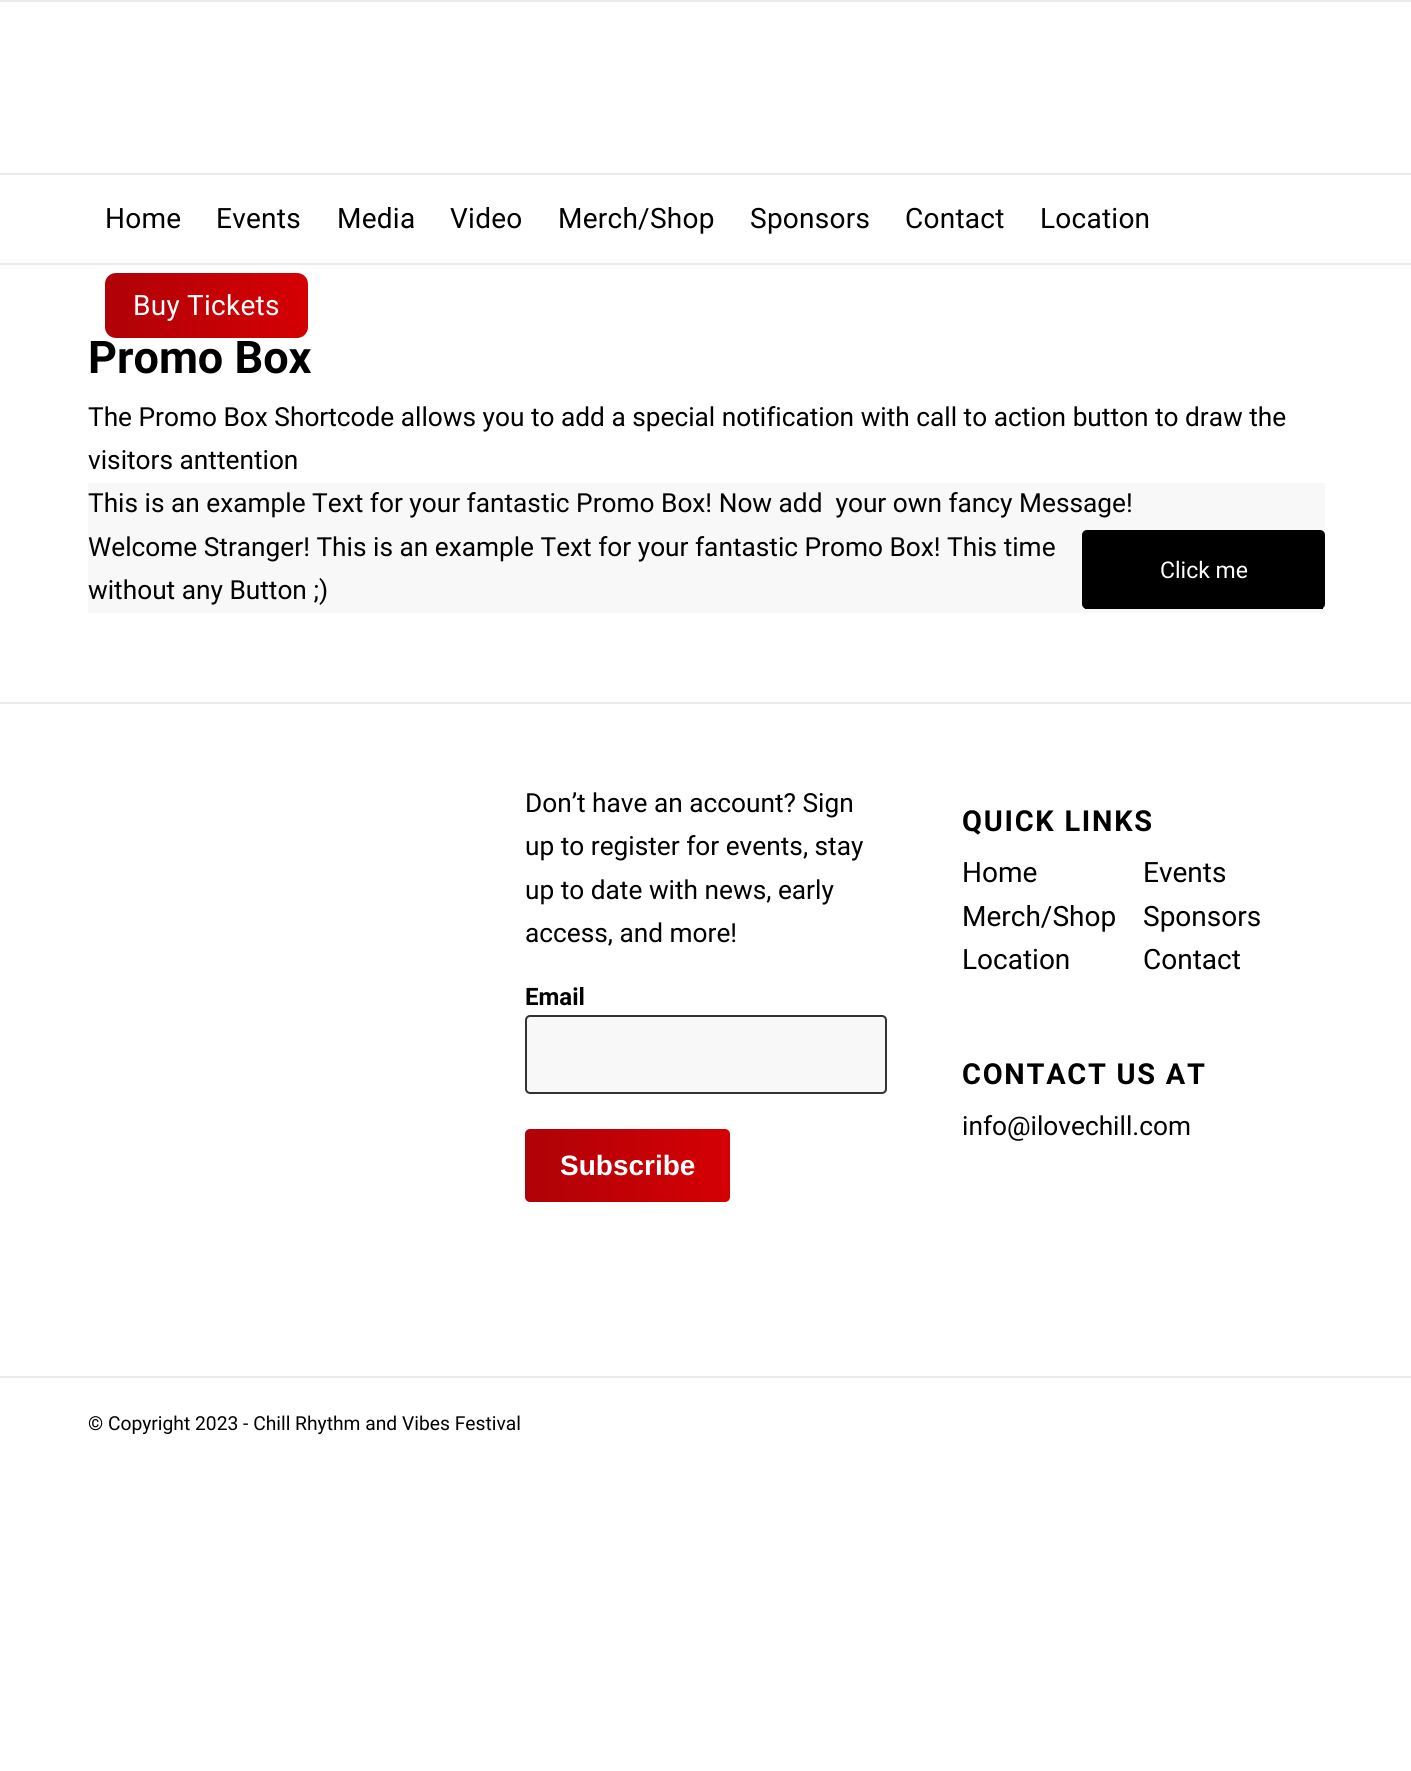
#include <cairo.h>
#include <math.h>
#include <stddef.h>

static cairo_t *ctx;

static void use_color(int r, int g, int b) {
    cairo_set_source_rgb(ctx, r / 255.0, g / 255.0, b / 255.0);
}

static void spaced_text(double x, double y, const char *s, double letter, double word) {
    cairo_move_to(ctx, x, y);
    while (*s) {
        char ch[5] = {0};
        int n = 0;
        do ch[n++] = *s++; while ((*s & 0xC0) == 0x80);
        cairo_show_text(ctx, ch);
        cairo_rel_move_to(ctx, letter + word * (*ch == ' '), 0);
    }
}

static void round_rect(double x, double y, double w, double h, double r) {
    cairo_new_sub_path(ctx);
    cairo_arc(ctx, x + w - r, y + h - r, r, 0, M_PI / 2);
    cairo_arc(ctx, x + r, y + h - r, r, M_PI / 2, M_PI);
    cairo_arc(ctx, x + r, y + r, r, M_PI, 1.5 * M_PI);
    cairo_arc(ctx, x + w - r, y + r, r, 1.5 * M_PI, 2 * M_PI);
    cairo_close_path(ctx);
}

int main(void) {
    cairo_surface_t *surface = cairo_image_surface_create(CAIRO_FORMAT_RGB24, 1411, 1771);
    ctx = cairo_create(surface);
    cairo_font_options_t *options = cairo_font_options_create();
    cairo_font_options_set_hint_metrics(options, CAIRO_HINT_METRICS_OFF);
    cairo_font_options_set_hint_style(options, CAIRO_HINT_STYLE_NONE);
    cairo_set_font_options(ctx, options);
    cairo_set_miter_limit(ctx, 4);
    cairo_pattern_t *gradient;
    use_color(255, 255, 255);
    cairo_paint(ctx);
    use_color(235, 235, 235);
    cairo_rectangle(ctx, 0, 0, 1411, 2);
    cairo_fill(ctx);
    cairo_rectangle(ctx, 0, 263, 1411, 2);
    cairo_fill(ctx);
    cairo_rectangle(ctx, 0, 173, 1411, 2);
    cairo_fill(ctx);
    cairo_select_font_face(ctx, "Roboto", CAIRO_FONT_SLANT_NORMAL, CAIRO_FONT_WEIGHT_NORMAL);
    cairo_set_font_size(ctx, 28);
    use_color(0, 0, 0);
    spaced_text(105, 228, "Home", 0.25, 0);
    spaced_text(216, 228, "Events", 0.25, 0);
    spaced_text(337, 228, "Media", 0.25, 0);
    spaced_text(450, 228, "Video", 0.25, 0);
    spaced_text(558, 228, "Merch/Shop", 0.25, 0);
    spaced_text(750, 228, "Sponsors", 0.25, 0);
    spaced_text(905, 228, "Contact", 0.25, 0);
    spaced_text(1040, 228, "Location", 0.25, 0);
    gradient = cairo_pattern_create_linear(105, 305, 308, 305);
    cairo_pattern_add_color_stop_rgba(gradient, 0, 0.686, 0.008, 0.031, 1);
    cairo_pattern_add_color_stop_rgba(gradient, 1, 0.835, 0, 0.012, 1);
    cairo_set_source(ctx, gradient);
    cairo_pattern_destroy(gradient);
    round_rect(105, 273, 203, 65, 11);
    cairo_fill(ctx);
    use_color(255, 255, 255);
    spaced_text(133, 315, "Buy Tickets", 0.25, 0);
    cairo_select_font_face(ctx, "Roboto", CAIRO_FONT_SLANT_NORMAL, CAIRO_FONT_WEIGHT_BOLD);
    cairo_set_font_size(ctx, 45);
    use_color(0, 0, 0);
    cairo_move_to(ctx, 88, 373);
    cairo_show_text(ctx, "Promo Box");
    cairo_select_font_face(ctx, "Roboto", CAIRO_FONT_SLANT_NORMAL, CAIRO_FONT_WEIGHT_NORMAL);
    cairo_set_font_size(ctx, 26.25);
    cairo_move_to(ctx, 88, 426);
    cairo_show_text(ctx, "The Promo Box Shortcode allows you to add a special notification with call to action button to draw the");
    cairo_move_to(ctx, 88, 469);
    cairo_show_text(ctx, "visitors anttention");
    use_color(248, 248, 248);
    cairo_rectangle(ctx, 88, 483, 1237, 130);
    cairo_fill(ctx);
    use_color(0, 0, 0);
    cairo_move_to(ctx, 88, 512);
    cairo_show_text(ctx, "This is an example Text for your fantastic Promo Box! Now add  your own fancy Message!");
    round_rect(1082, 530, 243, 79, 5);
    cairo_fill(ctx);
    cairo_rectangle(ctx, 1085, 608, 238, 1);
    cairo_fill(ctx);
    cairo_set_font_size(ctx, 23);
    use_color(255, 255, 255);
    cairo_move_to(ctx, 1160, 578);
    cairo_show_text(ctx, "Click me");
    cairo_set_font_size(ctx, 26.25);
    use_color(0, 0, 0);
    cairo_move_to(ctx, 88, 556);
    cairo_show_text(ctx, "Welcome Stranger! This is an example Text for your fantastic Promo Box! This time");
    cairo_move_to(ctx, 88, 599);
    cairo_show_text(ctx, "without any Button ;)");
    use_color(235, 235, 235);
    cairo_rectangle(ctx, 0, 702, 1411, 2);
    cairo_fill(ctx);
    use_color(0, 0, 0);
    cairo_move_to(ctx, 525, 812);
    cairo_show_text(ctx, "Don’t have an account? Sign");
    cairo_move_to(ctx, 525, 855);
    cairo_show_text(ctx, "up to register for events, stay");
    cairo_move_to(ctx, 525, 899);
    cairo_show_text(ctx, "up to date with news, early");
    cairo_move_to(ctx, 525, 942);
    cairo_show_text(ctx, "access, and more!");
    cairo_select_font_face(ctx, "Roboto", CAIRO_FONT_SLANT_NORMAL, CAIRO_FONT_WEIGHT_BOLD);
    cairo_set_font_size(ctx, 24);
    cairo_move_to(ctx, 525, 1005);
    cairo_show_text(ctx, "Email");
    use_color(248, 248, 248);
    round_rect(526, 1016, 360, 77, 4);
    cairo_fill_preserve(ctx);
    use_color(51, 51, 51);
    cairo_stroke(ctx);
    gradient = cairo_pattern_create_linear(525, 1166, 730, 1166);
    cairo_pattern_add_color_stop_rgba(gradient, 0, 0.686, 0.008, 0.031, 1);
    cairo_pattern_add_color_stop_rgba(gradient, 1, 0.835, 0, 0.012, 1);
    cairo_set_source(ctx, gradient);
    cairo_pattern_destroy(gradient);
    round_rect(525, 1129, 205, 73, 5);
    cairo_fill(ctx);
    cairo_select_font_face(ctx, "Liberation Sans", CAIRO_FONT_SLANT_NORMAL, CAIRO_FONT_WEIGHT_BOLD);
    cairo_set_font_size(ctx, 28);
    use_color(255, 255, 255);
    cairo_move_to(ctx, 560, 1175);
    cairo_show_text(ctx, "Subscribe");
    cairo_select_font_face(ctx, "Roboto", CAIRO_FONT_SLANT_NORMAL, CAIRO_FONT_WEIGHT_BOLD);
    cairo_set_font_size(ctx, 28.9);
    use_color(0, 0, 0);
    spaced_text(962, 831, "QUICK LINKS", 1.75, 0);
    cairo_select_font_face(ctx, "Roboto", CAIRO_FONT_SLANT_NORMAL, CAIRO_FONT_WEIGHT_NORMAL);
    cairo_set_font_size(ctx, 28);
    cairo_move_to(ctx, 962, 882);
    cairo_show_text(ctx, "Home");
    cairo_move_to(ctx, 1143, 882);
    cairo_show_text(ctx, "Events");
    cairo_move_to(ctx, 962, 926);
    cairo_show_text(ctx, "Merch/Shop");
    cairo_move_to(ctx, 1143, 926);
    cairo_show_text(ctx, "Sponsors");
    cairo_move_to(ctx, 962, 969);
    cairo_show_text(ctx, "Location");
    cairo_move_to(ctx, 1143, 969);
    cairo_show_text(ctx, "Contact");
    cairo_select_font_face(ctx, "Roboto", CAIRO_FONT_SLANT_NORMAL, CAIRO_FONT_WEIGHT_BOLD);
    cairo_set_font_size(ctx, 28.9);
    spaced_text(962, 1084, "CONTACT US AT", 1.75, 0);
    cairo_select_font_face(ctx, "Roboto", CAIRO_FONT_SLANT_NORMAL, CAIRO_FONT_WEIGHT_NORMAL);
    cairo_set_font_size(ctx, 26.25);
    cairo_move_to(ctx, 962, 1135);
    cairo_show_text(ctx, "info@ilovechill.com");
    use_color(235, 235, 235);
    cairo_rectangle(ctx, 0, 1376, 1411, 2);
    cairo_fill(ctx);
    cairo_set_font_size(ctx, 19.25);
    use_color(0, 0, 0);
    cairo_move_to(ctx, 88, 1430);
    cairo_show_text(ctx, "© Copyright 2023 - Chill Rhythm and Vibes Festival");
    cairo_surface_write_to_png(surface, "result.png");
    cairo_font_options_destroy(options);
    cairo_destroy(ctx);
    cairo_surface_destroy(surface);
    return 0;
}
